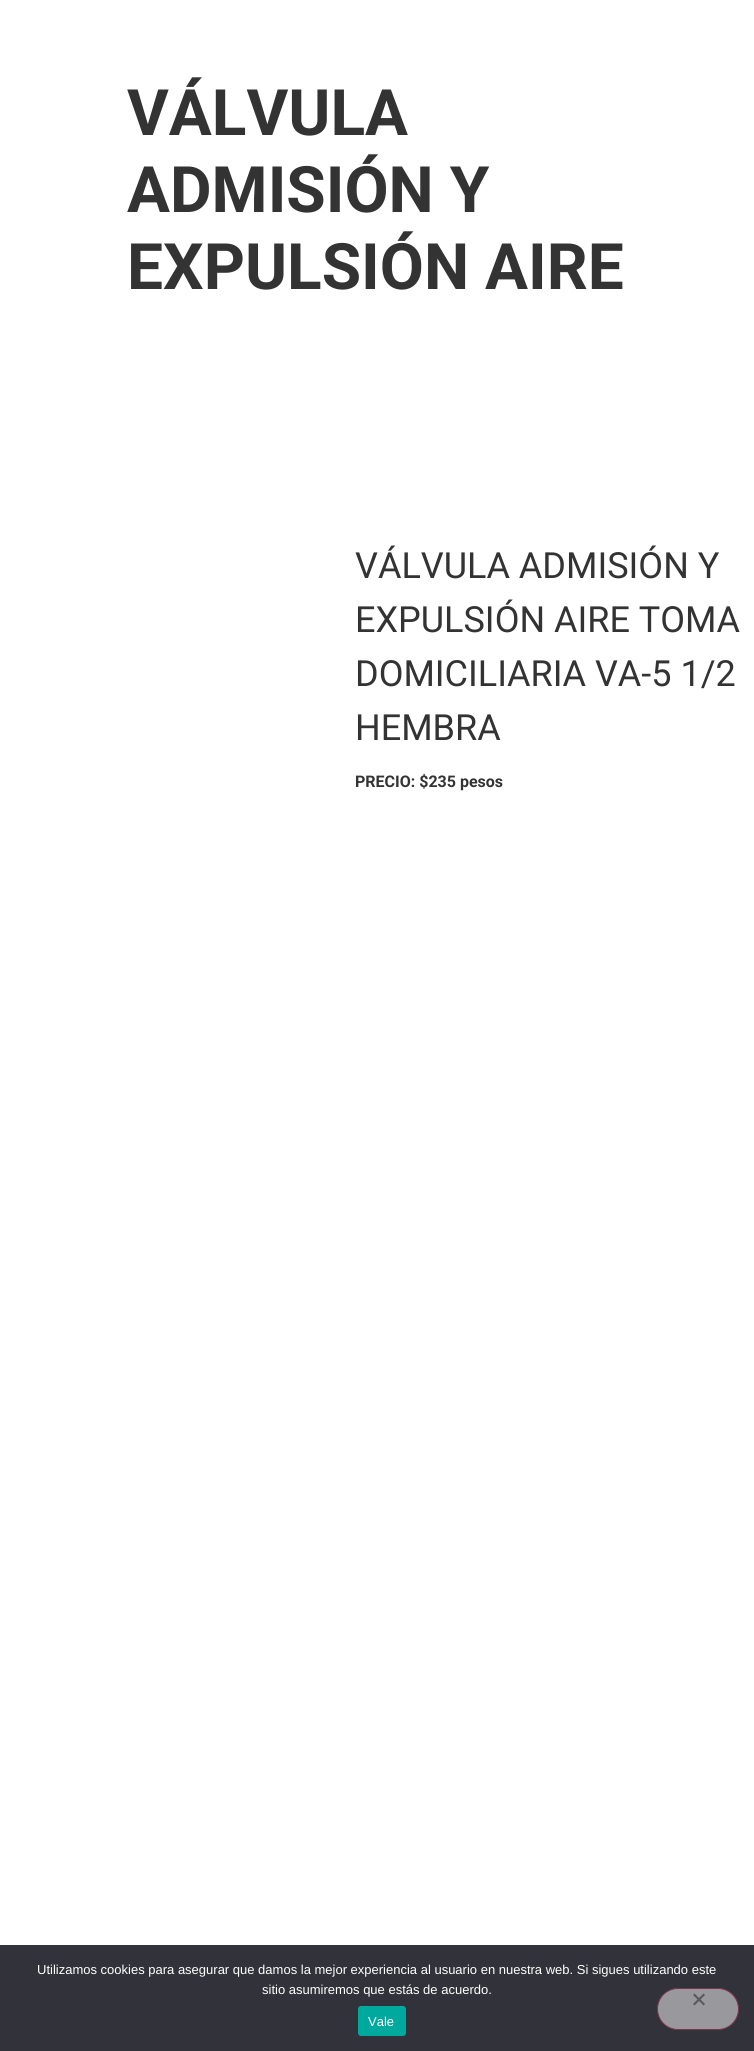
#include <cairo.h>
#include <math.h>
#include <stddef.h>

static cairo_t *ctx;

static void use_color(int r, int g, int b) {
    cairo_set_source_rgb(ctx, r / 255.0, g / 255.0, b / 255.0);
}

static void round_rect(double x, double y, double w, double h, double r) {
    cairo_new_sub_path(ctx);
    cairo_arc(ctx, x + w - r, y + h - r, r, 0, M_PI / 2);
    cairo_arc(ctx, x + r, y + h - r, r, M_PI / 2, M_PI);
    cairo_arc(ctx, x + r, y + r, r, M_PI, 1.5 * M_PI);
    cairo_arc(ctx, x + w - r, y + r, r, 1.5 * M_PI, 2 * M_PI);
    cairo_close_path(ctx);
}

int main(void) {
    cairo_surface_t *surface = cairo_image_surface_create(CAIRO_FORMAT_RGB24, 754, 2051);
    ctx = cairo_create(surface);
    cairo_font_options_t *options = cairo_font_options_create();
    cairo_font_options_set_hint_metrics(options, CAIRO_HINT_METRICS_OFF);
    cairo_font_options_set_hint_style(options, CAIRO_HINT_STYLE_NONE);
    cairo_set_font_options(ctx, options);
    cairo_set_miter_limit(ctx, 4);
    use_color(255, 255, 255);
    cairo_paint(ctx);
    cairo_select_font_face(ctx, "Roboto", CAIRO_FONT_SLANT_NORMAL, CAIRO_FONT_WEIGHT_BOLD);
    cairo_set_font_size(ctx, 64);
    use_color(51, 51, 51);
    cairo_move_to(ctx, 127, 135);
    cairo_show_text(ctx, "VÁLVULA");
    cairo_move_to(ctx, 127, 212);
    cairo_show_text(ctx, "ADMISIÓN Y");
    cairo_move_to(ctx, 127, 289);
    cairo_show_text(ctx, "EXPULSIÓN AIRE");
    cairo_select_font_face(ctx, "Roboto", CAIRO_FONT_SLANT_NORMAL, CAIRO_FONT_WEIGHT_NORMAL);
    cairo_set_font_size(ctx, 36);
    cairo_move_to(ctx, 355, 578);
    cairo_show_text(ctx, "VÁLVULA ADMISIÓN Y");
    cairo_move_to(ctx, 355, 632);
    cairo_show_text(ctx, "EXPULSIÓN AIRE TOMA");
    cairo_move_to(ctx, 355, 686);
    cairo_show_text(ctx, "DOMICILIARIA VA-5 1/2");
    cairo_move_to(ctx, 355, 740);
    cairo_show_text(ctx, "HEMBRA");
    cairo_select_font_face(ctx, "Roboto", CAIRO_FONT_SLANT_NORMAL, CAIRO_FONT_WEIGHT_BOLD);
    cairo_set_font_size(ctx, 16);
    cairo_move_to(ctx, 355, 787);
    cairo_show_text(ctx, "PRECIO: $235 pesos");
    use_color(50, 50, 58);
    cairo_rectangle(ctx, 0, 1945, 754, 106);
    cairo_fill(ctx);
    cairo_select_font_face(ctx, "Liberation Sans", CAIRO_FONT_SLANT_NORMAL, CAIRO_FONT_WEIGHT_NORMAL);
    cairo_set_font_size(ctx, 13);
    use_color(255, 255, 255);
    cairo_move_to(ctx, 37, 1974);
    cairo_show_text(ctx, "Utilizamos cookies para asegurar que damos la mejor experiencia al usuario en nuestra web. Si sigues utilizando este");
    cairo_move_to(ctx, 262, 1994);
    cairo_show_text(ctx, "sitio asumiremos que estás de acuerdo.");
    use_color(0, 169, 157);
    round_rect(358, 2006, 48, 30, 3);
    cairo_fill(ctx);
    use_color(255, 255, 255);
    cairo_move_to(ctx, 368, 2026);
    cairo_show_text(ctx, "Vale");
    use_color(153, 153, 157);
    round_rect(657.5, 1988.5, 81, 41, 20.5);
    cairo_fill_preserve(ctx);
    use_color(127, 51, 80);
    cairo_set_line_width(ctx, 1);
    cairo_stroke(ctx);
    use_color(89, 89, 93);
    cairo_new_path(ctx);
    cairo_move_to(ctx, 703.5, 1993.5);
    cairo_line_to(ctx, 705, 1995);
    cairo_line_to(ctx, 694.5, 2005.5);
    cairo_line_to(ctx, 693, 2004);
    cairo_close_path(ctx);
    cairo_fill(ctx);
    cairo_new_path(ctx);
    cairo_move_to(ctx, 693, 1995);
    cairo_line_to(ctx, 694.5, 1993.5);
    cairo_line_to(ctx, 705, 2004);
    cairo_line_to(ctx, 703.5, 2005.5);
    cairo_close_path(ctx);
    cairo_fill(ctx);
    cairo_surface_write_to_png(surface, "result.png");
    cairo_font_options_destroy(options);
    cairo_destroy(ctx);
    cairo_surface_destroy(surface);
    return 0;
}
